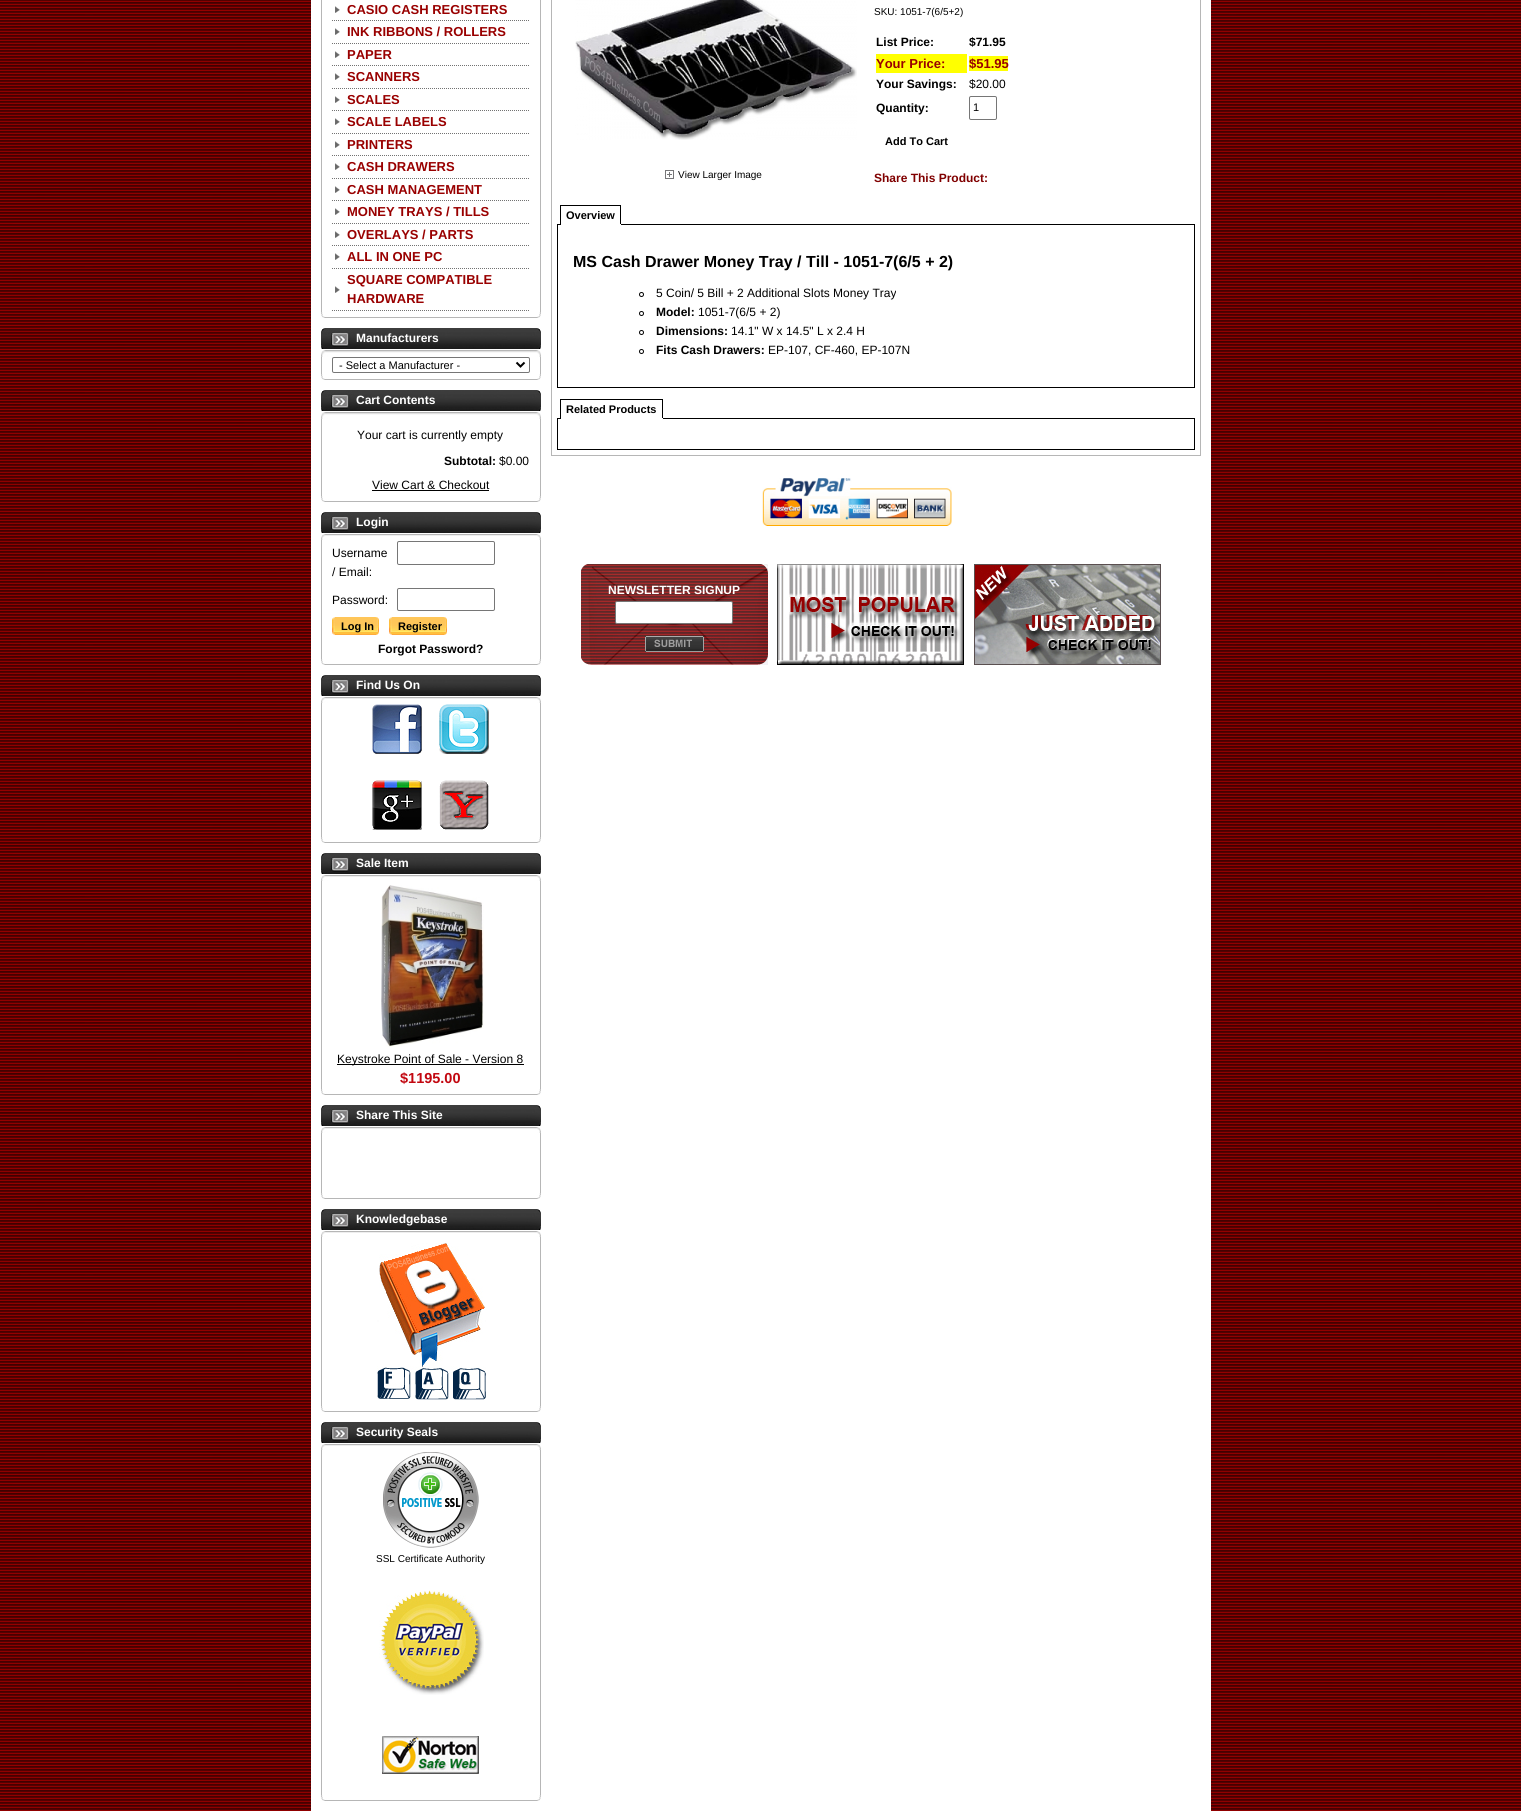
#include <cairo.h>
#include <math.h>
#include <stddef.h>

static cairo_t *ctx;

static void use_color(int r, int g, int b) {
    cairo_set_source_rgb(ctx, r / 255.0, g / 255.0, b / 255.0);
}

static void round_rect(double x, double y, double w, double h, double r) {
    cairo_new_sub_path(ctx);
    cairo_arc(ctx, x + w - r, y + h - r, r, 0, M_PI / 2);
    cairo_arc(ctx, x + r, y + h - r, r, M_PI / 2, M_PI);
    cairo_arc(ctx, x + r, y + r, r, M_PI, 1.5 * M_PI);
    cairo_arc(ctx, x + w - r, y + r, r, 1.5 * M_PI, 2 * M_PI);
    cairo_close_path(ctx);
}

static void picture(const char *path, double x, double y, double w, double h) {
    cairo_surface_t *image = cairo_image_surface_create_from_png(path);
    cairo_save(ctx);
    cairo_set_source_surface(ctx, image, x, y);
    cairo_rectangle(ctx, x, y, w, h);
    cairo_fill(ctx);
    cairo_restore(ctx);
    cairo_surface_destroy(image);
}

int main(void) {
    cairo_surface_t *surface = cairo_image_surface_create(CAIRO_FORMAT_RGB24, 1521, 1811);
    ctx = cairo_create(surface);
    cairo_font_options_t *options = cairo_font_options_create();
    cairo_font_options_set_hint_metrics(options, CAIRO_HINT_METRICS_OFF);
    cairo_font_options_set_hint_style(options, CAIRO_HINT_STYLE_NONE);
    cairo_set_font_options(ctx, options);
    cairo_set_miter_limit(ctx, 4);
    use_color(255, 255, 255);
    cairo_paint(ctx);
    picture("img1.png", 0, 0, 1521, 1811);
    use_color(255, 255, 255);
    cairo_rectangle(ctx, 311, 0, 900, 1811);
    cairo_fill(ctx);
    use_color(182, 182, 182);
    cairo_rectangle(ctx, 540, 0, 1, 318);
    cairo_fill(ctx);
    cairo_rectangle(ctx, 321, 0, 1, 318);
    cairo_fill(ctx);
    picture("img2.png", 335, 6, 5, 7);
    cairo_new_path(ctx);
    cairo_move_to(ctx, 332, 20.5);
    cairo_line_to(ctx, 530, 20.5);
    use_color(114, 114, 114);
    cairo_set_line_width(ctx, 1);
    cairo_set_dash(ctx, (double[]){1, 1}, 2, 0);
    cairo_stroke(ctx);
    cairo_select_font_face(ctx, "Liberation Sans", CAIRO_FONT_SLANT_NORMAL, CAIRO_FONT_WEIGHT_BOLD);
    cairo_set_font_size(ctx, 13);
    use_color(153, 0, 0);
    cairo_move_to(ctx, 347, 14);
    cairo_show_text(ctx, "CASIO CASH REGISTERS");
    picture("img2.png", 335, 28, 5, 7);
    cairo_new_path(ctx);
    cairo_move_to(ctx, 332, 43.5);
    cairo_line_to(ctx, 530, 43.5);
    use_color(114, 114, 114);
    cairo_stroke(ctx);
    use_color(153, 0, 0);
    cairo_move_to(ctx, 347, 36);
    cairo_show_text(ctx, "INK RIBBONS / ROLLERS");
    picture("img2.png", 335, 51, 5, 7);
    cairo_new_path(ctx);
    cairo_move_to(ctx, 332, 65.5);
    cairo_line_to(ctx, 530, 65.5);
    use_color(114, 114, 114);
    cairo_stroke(ctx);
    use_color(153, 0, 0);
    cairo_move_to(ctx, 347, 59);
    cairo_show_text(ctx, "PAPER");
    picture("img2.png", 335, 73, 5, 7);
    cairo_new_path(ctx);
    cairo_move_to(ctx, 332, 88.5);
    cairo_line_to(ctx, 530, 88.5);
    use_color(114, 114, 114);
    cairo_stroke(ctx);
    use_color(153, 0, 0);
    cairo_move_to(ctx, 347, 81);
    cairo_show_text(ctx, "SCANNERS");
    picture("img2.png", 335, 96, 5, 7);
    cairo_new_path(ctx);
    cairo_move_to(ctx, 332, 110.5);
    cairo_line_to(ctx, 530, 110.5);
    use_color(114, 114, 114);
    cairo_stroke(ctx);
    use_color(153, 0, 0);
    cairo_move_to(ctx, 347, 104);
    cairo_show_text(ctx, "SCALES");
    picture("img2.png", 335, 118, 5, 7);
    cairo_new_path(ctx);
    cairo_move_to(ctx, 332, 133.5);
    cairo_line_to(ctx, 530, 133.5);
    use_color(114, 114, 114);
    cairo_stroke(ctx);
    use_color(153, 0, 0);
    cairo_move_to(ctx, 347, 126);
    cairo_show_text(ctx, "SCALE LABELS");
    picture("img2.png", 335, 141, 5, 7);
    cairo_new_path(ctx);
    cairo_move_to(ctx, 332, 155.5);
    cairo_line_to(ctx, 530, 155.5);
    use_color(114, 114, 114);
    cairo_stroke(ctx);
    use_color(153, 0, 0);
    cairo_move_to(ctx, 347, 149);
    cairo_show_text(ctx, "PRINTERS");
    picture("img2.png", 335, 163, 5, 7);
    cairo_new_path(ctx);
    cairo_move_to(ctx, 332, 178.5);
    cairo_line_to(ctx, 530, 178.5);
    use_color(114, 114, 114);
    cairo_stroke(ctx);
    use_color(153, 0, 0);
    cairo_move_to(ctx, 347, 171);
    cairo_show_text(ctx, "CASH DRAWERS");
    picture("img2.png", 335, 186, 5, 7);
    cairo_new_path(ctx);
    cairo_move_to(ctx, 332, 200.5);
    cairo_line_to(ctx, 530, 200.5);
    use_color(114, 114, 114);
    cairo_stroke(ctx);
    use_color(153, 0, 0);
    cairo_move_to(ctx, 347, 194);
    cairo_show_text(ctx, "CASH MANAGEMENT");
    picture("img2.png", 335, 208, 5, 7);
    cairo_new_path(ctx);
    cairo_move_to(ctx, 332, 223.5);
    cairo_line_to(ctx, 530, 223.5);
    use_color(114, 114, 114);
    cairo_stroke(ctx);
    use_color(153, 0, 0);
    cairo_move_to(ctx, 347, 216);
    cairo_show_text(ctx, "MONEY TRAYS / TILLS");
    picture("img2.png", 335, 231, 5, 7);
    cairo_new_path(ctx);
    cairo_move_to(ctx, 332, 245.5);
    cairo_line_to(ctx, 530, 245.5);
    use_color(114, 114, 114);
    cairo_stroke(ctx);
    use_color(153, 0, 0);
    cairo_move_to(ctx, 347, 239);
    cairo_show_text(ctx, "OVERLAYS / PARTS");
    picture("img2.png", 335, 253, 5, 7);
    cairo_new_path(ctx);
    cairo_move_to(ctx, 332, 268.5);
    cairo_line_to(ctx, 530, 268.5);
    use_color(114, 114, 114);
    cairo_stroke(ctx);
    use_color(153, 0, 0);
    cairo_move_to(ctx, 347, 261);
    cairo_show_text(ctx, "ALL IN ONE PC");
    picture("img2.png", 335, 286, 5, 7);
    cairo_new_path(ctx);
    cairo_move_to(ctx, 332, 310.5);
    cairo_line_to(ctx, 530, 310.5);
    use_color(114, 114, 114);
    cairo_stroke(ctx);
    use_color(153, 0, 0);
    cairo_move_to(ctx, 347, 284);
    cairo_show_text(ctx, "SQUARE COMPATIBLE");
    cairo_move_to(ctx, 347, 303);
    cairo_show_text(ctx, "HARDWARE");
    picture("img3.png", 321, 312, 220, 6);
    picture("img4.png", 321, 328, 220, 21);
    cairo_set_font_size(ctx, 12);
    use_color(255, 255, 255);
    cairo_move_to(ctx, 356, 342);
    cairo_show_text(ctx, "Manufacturers");
    use_color(182, 182, 182);
    cairo_rectangle(ctx, 540, 350, 1, 30);
    cairo_fill(ctx);
    cairo_rectangle(ctx, 321, 350, 1, 30);
    cairo_fill(ctx);
    picture("img5.png", 321, 350, 220, 7);
    round_rect(332.5, 357.5, 197, 15, 1.5);
    use_color(118, 118, 118);
    cairo_set_dash(ctx, NULL, 0, 0);
    cairo_stroke(ctx);
    cairo_new_path(ctx);
    cairo_move_to(ctx, 516.5, 362.5);
    cairo_line_to(ctx, 520.5, 366.5);
    cairo_line_to(ctx, 524.5, 362.5);
    use_color(0, 0, 0);
    cairo_set_line_width(ctx, 2);
    cairo_stroke(ctx);
    cairo_select_font_face(ctx, "Liberation Sans", CAIRO_FONT_SLANT_NORMAL, CAIRO_FONT_WEIGHT_NORMAL);
    cairo_set_font_size(ctx, 11);
    cairo_move_to(ctx, 339, 369);
    cairo_show_text(ctx, "- Select a Manufacturer -");
    picture("img3.png", 321, 374, 220, 6);
    picture("img4.png", 321, 390, 220, 21);
    cairo_select_font_face(ctx, "Liberation Sans", CAIRO_FONT_SLANT_NORMAL, CAIRO_FONT_WEIGHT_BOLD);
    cairo_set_font_size(ctx, 12);
    use_color(255, 255, 255);
    cairo_move_to(ctx, 356, 404);
    cairo_show_text(ctx, "Cart Contents");
    use_color(182, 182, 182);
    cairo_rectangle(ctx, 540, 412, 1, 90);
    cairo_fill(ctx);
    cairo_rectangle(ctx, 321, 412, 1, 90);
    cairo_fill(ctx);
    picture("img5.png", 321, 412, 220, 7);
    cairo_select_font_face(ctx, "Liberation Sans", CAIRO_FONT_SLANT_NORMAL, CAIRO_FONT_WEIGHT_NORMAL);
    use_color(0, 0, 0);
    cairo_move_to(ctx, 357, 439);
    cairo_show_text(ctx, "Your cart is currently empty");
    cairo_select_font_face(ctx, "Liberation Sans", CAIRO_FONT_SLANT_NORMAL, CAIRO_FONT_WEIGHT_BOLD);
    cairo_move_to(ctx, 444, 465);
    cairo_show_text(ctx, "Subtotal:");
    cairo_select_font_face(ctx, "Liberation Sans", CAIRO_FONT_SLANT_NORMAL, CAIRO_FONT_WEIGHT_NORMAL);
    cairo_move_to(ctx, 499, 465);
    cairo_show_text(ctx, "$0.00");
    cairo_move_to(ctx, 372, 489);
    cairo_show_text(ctx, "View Cart & Checkout");
    cairo_rectangle(ctx, 372, 490, 117, 1);
    cairo_fill(ctx);
    picture("img3.png", 321, 496, 220, 6);
    picture("img4.png", 321, 512, 220, 21);
    cairo_select_font_face(ctx, "Liberation Sans", CAIRO_FONT_SLANT_NORMAL, CAIRO_FONT_WEIGHT_BOLD);
    use_color(255, 255, 255);
    cairo_move_to(ctx, 356, 526);
    cairo_show_text(ctx, "Login");
    use_color(182, 182, 182);
    cairo_rectangle(ctx, 540, 534, 1, 131);
    cairo_fill(ctx);
    cairo_rectangle(ctx, 321, 534, 1, 131);
    cairo_fill(ctx);
    picture("img6.png", 321, 534, 220, 6);
    cairo_select_font_face(ctx, "Liberation Sans", CAIRO_FONT_SLANT_NORMAL, CAIRO_FONT_WEIGHT_NORMAL);
    use_color(0, 0, 0);
    cairo_move_to(ctx, 332, 557);
    cairo_show_text(ctx, "Username");
    cairo_move_to(ctx, 332, 576);
    cairo_show_text(ctx, "/ Email:");
    round_rect(397.5, 541.5, 97, 23, 1.5);
    use_color(118, 118, 118);
    cairo_set_line_width(ctx, 1);
    cairo_stroke(ctx);
    use_color(0, 0, 0);
    cairo_move_to(ctx, 332, 604);
    cairo_show_text(ctx, "Password:");
    round_rect(397.5, 588.5, 97, 22, 1.5);
    use_color(118, 118, 118);
    cairo_stroke(ctx);
    picture("img7.png", 332, 617, 3, 18);
    picture("img8.png", 335, 617, 44, 18);
    cairo_select_font_face(ctx, "Liberation Sans", CAIRO_FONT_SLANT_NORMAL, CAIRO_FONT_WEIGHT_BOLD);
    cairo_set_font_size(ctx, 11);
    use_color(0, 0, 0);
    cairo_move_to(ctx, 341, 630);
    cairo_show_text(ctx, "Log In");
    picture("img7.png", 389, 617, 3, 18);
    picture("img9.png", 392, 617, 55, 18);
    cairo_move_to(ctx, 398, 630);
    cairo_show_text(ctx, "Register");
    cairo_set_font_size(ctx, 12);
    cairo_move_to(ctx, 378, 653);
    cairo_show_text(ctx, "Forgot Password?");
    picture("img3.png", 321, 659, 220, 6);
    picture("img4.png", 321, 675, 220, 21);
    use_color(255, 255, 255);
    cairo_move_to(ctx, 356, 689);
    cairo_show_text(ctx, "Find Us On");
    use_color(182, 182, 182);
    cairo_rectangle(ctx, 540, 697, 1, 146);
    cairo_fill(ctx);
    cairo_rectangle(ctx, 321, 697, 1, 146);
    cairo_fill(ctx);
    picture("img6.png", 321, 697, 220, 6);
    picture("img10.png", 372, 704, 50, 50);
    picture("img11.png", 439, 704, 50, 50);
    picture("img12.png", 372, 780, 50, 50);
    picture("img13.png", 439, 780, 50, 50);
    picture("img3.png", 321, 837, 220, 6);
    picture("img4.png", 321, 853, 220, 21);
    use_color(255, 255, 255);
    cairo_move_to(ctx, 356, 867);
    cairo_show_text(ctx, "Sale Item");
    use_color(182, 182, 182);
    cairo_rectangle(ctx, 540, 875, 1, 220);
    cairo_fill(ctx);
    cairo_rectangle(ctx, 321, 875, 1, 220);
    cairo_fill(ctx);
    picture("img6.png", 321, 875, 220, 6);
    picture("img14.png", 381, 885, 103, 162);
    use_color(0, 0, 0);
    cairo_rectangle(ctx, 337, 1064, 187, 1);
    cairo_fill(ctx);
    cairo_select_font_face(ctx, "Liberation Sans", CAIRO_FONT_SLANT_NORMAL, CAIRO_FONT_WEIGHT_NORMAL);
    cairo_move_to(ctx, 337, 1063);
    cairo_show_text(ctx, "Keystroke Point of Sale - Version 8");
    cairo_select_font_face(ctx, "Liberation Sans", CAIRO_FONT_SLANT_NORMAL, CAIRO_FONT_WEIGHT_BOLD);
    cairo_set_font_size(ctx, 14.5);
    use_color(194, 7, 16);
    cairo_move_to(ctx, 400, 1083);
    cairo_show_text(ctx, "$1195.00");
    picture("img3.png", 321, 1089, 220, 6);
    picture("img4.png", 321, 1105, 220, 21);
    cairo_set_font_size(ctx, 12);
    use_color(255, 255, 255);
    cairo_move_to(ctx, 356, 1119);
    cairo_show_text(ctx, "Share This Site");
    use_color(182, 182, 182);
    cairo_rectangle(ctx, 540, 1127, 1, 72);
    cairo_fill(ctx);
    cairo_rectangle(ctx, 321, 1127, 1, 72);
    cairo_fill(ctx);
    picture("img6.png", 321, 1127, 220, 6);
    picture("img3.png", 321, 1193, 220, 6);
    picture("img4.png", 321, 1209, 220, 21);
    use_color(255, 255, 255);
    cairo_move_to(ctx, 356, 1223);
    cairo_show_text(ctx, "Knowledgebase");
    use_color(182, 182, 182);
    cairo_rectangle(ctx, 540, 1231, 1, 181);
    cairo_fill(ctx);
    cairo_rectangle(ctx, 321, 1231, 1, 181);
    cairo_fill(ctx);
    picture("img6.png", 321, 1231, 220, 6);
    picture("img15.png", 377, 1243, 109, 157);
    picture("img3.png", 321, 1406, 220, 6);
    picture("img4.png", 321, 1422, 220, 21);
    use_color(255, 255, 255);
    cairo_move_to(ctx, 356, 1436);
    cairo_show_text(ctx, "Security Seals");
    use_color(182, 182, 182);
    cairo_rectangle(ctx, 540, 1444, 1, 357);
    cairo_fill(ctx);
    cairo_rectangle(ctx, 321, 1444, 1, 357);
    cairo_fill(ctx);
    picture("img6.png", 321, 1444, 220, 6);
    picture("img16.png", 383, 1452, 96, 96);
    cairo_select_font_face(ctx, "Liberation Sans", CAIRO_FONT_SLANT_NORMAL, CAIRO_FONT_WEIGHT_NORMAL);
    cairo_set_font_size(ctx, 10);
    use_color(0, 0, 0);
    cairo_move_to(ctx, 376, 1562);
    cairo_show_text(ctx, "SSL Certificate Authority");
    picture("img17.png", 379, 1590, 105, 105);
    picture("img18.png", 382, 1736, 97, 38);
    picture("img3.png", 321, 1795, 220, 6);
    cairo_rectangle(ctx, 551.5, -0.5, 649, 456);
    use_color(182, 182, 182);
    cairo_stroke(ctx);
    picture("img19.png", 575, 0, 282, 140);
    picture("img20.png", 665, 170, 9, 9);
    use_color(0, 0, 0);
    cairo_move_to(ctx, 678, 178);
    cairo_show_text(ctx, "View Larger Image");
    cairo_move_to(ctx, 874, 15);
    cairo_show_text(ctx, "SKU: 1051-7(6/5+2)");
    cairo_select_font_face(ctx, "Liberation Sans", CAIRO_FONT_SLANT_NORMAL, CAIRO_FONT_WEIGHT_BOLD);
    cairo_set_font_size(ctx, 12);
    cairo_move_to(ctx, 876, 46);
    cairo_show_text(ctx, "List Price:");
    cairo_move_to(ctx, 969, 46);
    cairo_show_text(ctx, "$71.95");
    use_color(255, 255, 0);
    cairo_rectangle(ctx, 876, 54, 91, 19);
    cairo_fill(ctx);
    cairo_set_font_size(ctx, 13);
    use_color(153, 0, 0);
    cairo_move_to(ctx, 876, 68);
    cairo_show_text(ctx, "Your Price:");
    use_color(255, 255, 0);
    cairo_rectangle(ctx, 969, 56, 39, 15);
    cairo_fill(ctx);
    use_color(153, 0, 0);
    cairo_move_to(ctx, 969, 68);
    cairo_show_text(ctx, "$51.95");
    cairo_set_font_size(ctx, 12);
    use_color(0, 0, 0);
    cairo_move_to(ctx, 876, 88);
    cairo_show_text(ctx, "Your Savings:");
    cairo_select_font_face(ctx, "Liberation Sans", CAIRO_FONT_SLANT_NORMAL, CAIRO_FONT_WEIGHT_NORMAL);
    cairo_move_to(ctx, 969, 88);
    cairo_show_text(ctx, "$20.00");
    cairo_select_font_face(ctx, "Liberation Sans", CAIRO_FONT_SLANT_NORMAL, CAIRO_FONT_WEIGHT_BOLD);
    cairo_move_to(ctx, 876, 112);
    cairo_show_text(ctx, "Quantity:");
    round_rect(969.5, 96.5, 27, 23, 1.5);
    use_color(118, 118, 118);
    cairo_stroke(ctx);
    cairo_select_font_face(ctx, "Liberation Sans", CAIRO_FONT_SLANT_NORMAL, CAIRO_FONT_WEIGHT_NORMAL);
    cairo_set_font_size(ctx, 11);
    use_color(0, 0, 0);
    cairo_move_to(ctx, 973, 111);
    cairo_show_text(ctx, "1");
    cairo_select_font_face(ctx, "Liberation Sans", CAIRO_FONT_SLANT_NORMAL, CAIRO_FONT_WEIGHT_BOLD);
    cairo_move_to(ctx, 885, 145);
    cairo_show_text(ctx, "Add To Cart");
    cairo_set_font_size(ctx, 12);
    use_color(128, 0, 0);
    cairo_move_to(ctx, 874, 182);
    cairo_show_text(ctx, "Share This Product:");
    use_color(0, 0, 0);
    cairo_rectangle(ctx, 557, 224, 638, 1);
    cairo_fill(ctx);
    cairo_set_font_size(ctx, 11);
    cairo_move_to(ctx, 566, 219);
    cairo_show_text(ctx, "Overview");
    cairo_rectangle(ctx, 560, 205, 61, 1);
    cairo_fill(ctx);
    cairo_rectangle(ctx, 620, 205, 1, 20);
    cairo_fill(ctx);
    use_color(255, 255, 255);
    cairo_rectangle(ctx, 560, 224, 61, 1);
    cairo_fill(ctx);
    use_color(0, 0, 0);
    cairo_rectangle(ctx, 560, 205, 1, 20);
    cairo_fill(ctx);
    cairo_rectangle(ctx, 1194, 225, 1, 163);
    cairo_fill(ctx);
    cairo_rectangle(ctx, 557, 387, 638, 1);
    cairo_fill(ctx);
    cairo_rectangle(ctx, 557, 225, 1, 163);
    cairo_fill(ctx);
    cairo_set_font_size(ctx, 16);
    cairo_move_to(ctx, 573, 267);
    cairo_show_text(ctx, "MS Cash Drawer Money Tray / Till - 1051-7(6/5 + 2)");
    cairo_new_path(ctx);
    cairo_arc(ctx, 641.5, 294.5, 2, 0, 2 * M_PI);
    cairo_stroke(ctx);
    cairo_select_font_face(ctx, "Liberation Sans", CAIRO_FONT_SLANT_NORMAL, CAIRO_FONT_WEIGHT_NORMAL);
    cairo_set_font_size(ctx, 12);
    cairo_move_to(ctx, 656, 297);
    cairo_show_text(ctx, "5 Coin/ 5 Bill + 2 Additional Slots Money Tray");
    cairo_new_path(ctx);
    cairo_arc(ctx, 641.5, 313.5, 2, 0, 2 * M_PI);
    cairo_stroke(ctx);
    cairo_select_font_face(ctx, "Liberation Sans", CAIRO_FONT_SLANT_NORMAL, CAIRO_FONT_WEIGHT_BOLD);
    cairo_move_to(ctx, 656, 316);
    cairo_show_text(ctx, "Model:");
    cairo_select_font_face(ctx, "Liberation Sans", CAIRO_FONT_SLANT_NORMAL, CAIRO_FONT_WEIGHT_NORMAL);
    cairo_move_to(ctx, 698, 316);
    cairo_show_text(ctx, "1051-7(6/5 + 2)");
    cairo_new_path(ctx);
    cairo_arc(ctx, 641.5, 332.5, 2, 0, 2 * M_PI);
    cairo_stroke(ctx);
    cairo_select_font_face(ctx, "Liberation Sans", CAIRO_FONT_SLANT_NORMAL, CAIRO_FONT_WEIGHT_BOLD);
    cairo_move_to(ctx, 656, 335);
    cairo_show_text(ctx, "Dimensions:");
    cairo_select_font_face(ctx, "Liberation Sans", CAIRO_FONT_SLANT_NORMAL, CAIRO_FONT_WEIGHT_NORMAL);
    cairo_move_to(ctx, 731, 335);
    cairo_show_text(ctx, "14.1\" W x 14.5\" L x 2.4 H");
    cairo_new_path(ctx);
    cairo_arc(ctx, 641.5, 351.5, 2, 0, 2 * M_PI);
    cairo_stroke(ctx);
    cairo_select_font_face(ctx, "Liberation Sans", CAIRO_FONT_SLANT_NORMAL, CAIRO_FONT_WEIGHT_BOLD);
    cairo_move_to(ctx, 656, 354);
    cairo_show_text(ctx, "Fits Cash Drawers:");
    cairo_select_font_face(ctx, "Liberation Sans", CAIRO_FONT_SLANT_NORMAL, CAIRO_FONT_WEIGHT_NORMAL);
    cairo_move_to(ctx, 768, 354);
    cairo_show_text(ctx, "EP-107, CF-460, EP-107N");
    cairo_rectangle(ctx, 557, 418, 638, 1);
    cairo_fill(ctx);
    cairo_select_font_face(ctx, "Liberation Sans", CAIRO_FONT_SLANT_NORMAL, CAIRO_FONT_WEIGHT_BOLD);
    cairo_set_font_size(ctx, 11);
    cairo_move_to(ctx, 566, 413);
    cairo_show_text(ctx, "Related Products");
    cairo_rectangle(ctx, 560, 399, 103, 1);
    cairo_fill(ctx);
    cairo_rectangle(ctx, 662, 399, 1, 20);
    cairo_fill(ctx);
    use_color(255, 255, 255);
    cairo_rectangle(ctx, 560, 418, 103, 1);
    cairo_fill(ctx);
    use_color(0, 0, 0);
    cairo_rectangle(ctx, 560, 399, 1, 20);
    cairo_fill(ctx);
    cairo_rectangle(ctx, 1194, 419, 1, 31);
    cairo_fill(ctx);
    cairo_rectangle(ctx, 557, 449, 638, 1);
    cairo_fill(ctx);
    cairo_rectangle(ctx, 557, 419, 1, 31);
    cairo_fill(ctx);
    picture("img21.png", 762, 478, 190, 48);
    picture("img22.png", 581, 564, 187, 101);
    cairo_set_font_size(ctx, 12);
    use_color(255, 255, 255);
    cairo_move_to(ctx, 608, 594);
    cairo_show_text(ctx, "NEWSLETTER SIGNUP");
    round_rect(615.5, 601.5, 117, 22, 1.5);
    cairo_fill_preserve(ctx);
    use_color(118, 118, 118);
    cairo_stroke(ctx);
    picture("img23.png", 645, 636, 59, 16);
    picture("img24.png", 777, 564, 187, 101);
    picture("img25.png", 974, 564, 187, 101);
    cairo_surface_write_to_png(surface, "result.png");
    cairo_font_options_destroy(options);
    cairo_destroy(ctx);
    cairo_surface_destroy(surface);
    return 0;
}
